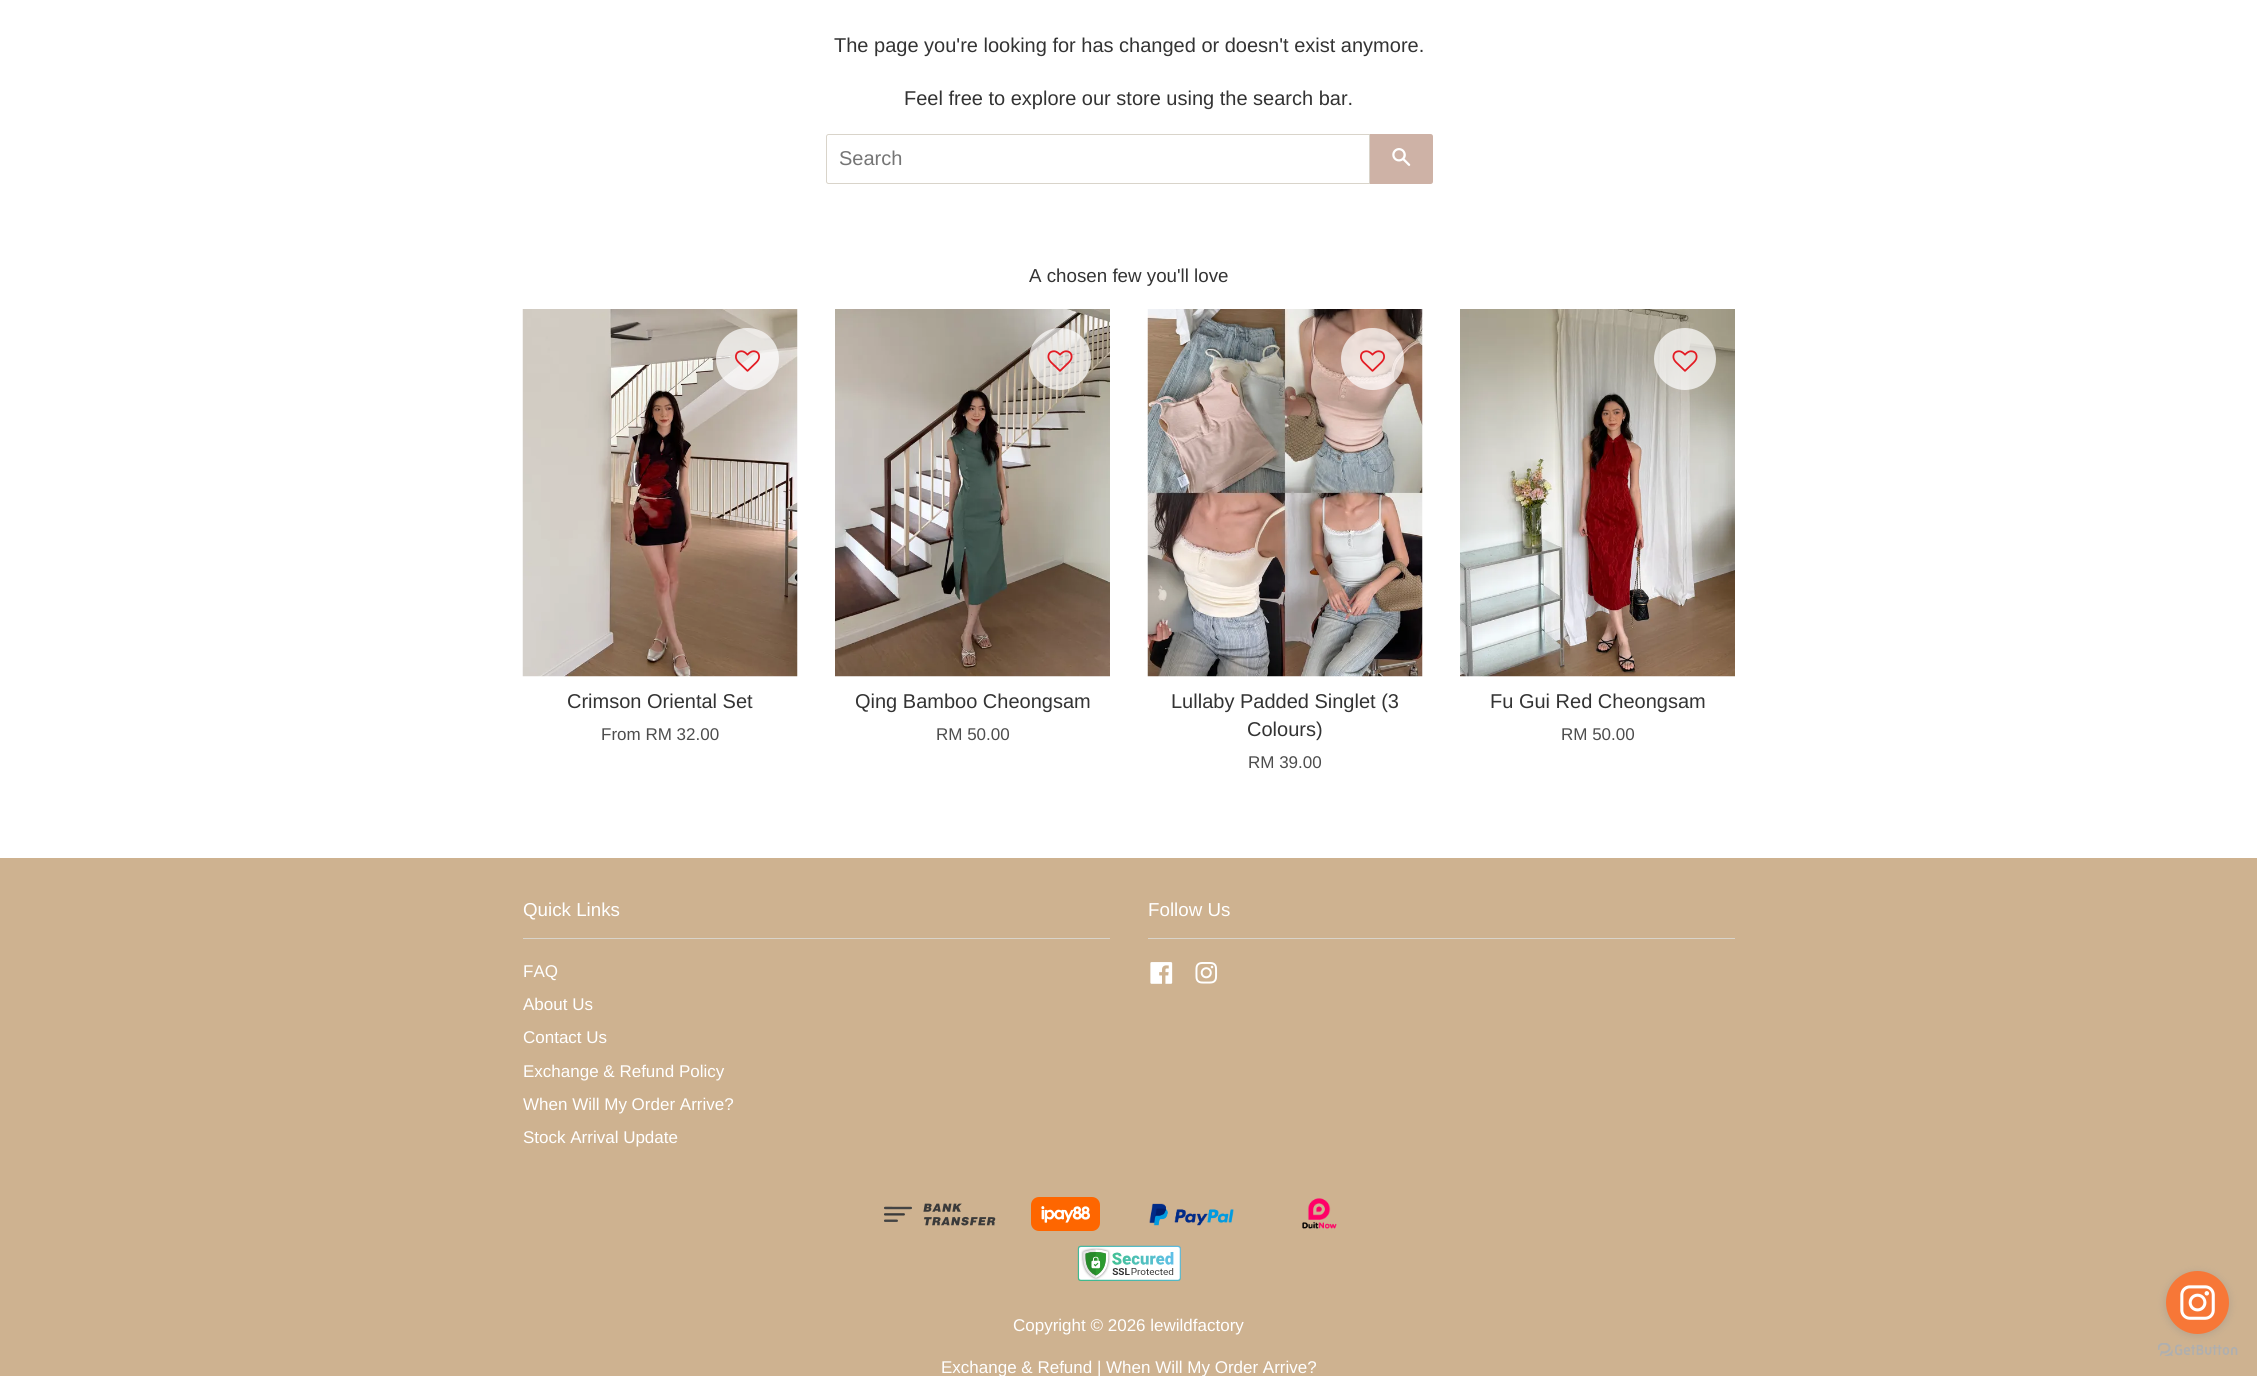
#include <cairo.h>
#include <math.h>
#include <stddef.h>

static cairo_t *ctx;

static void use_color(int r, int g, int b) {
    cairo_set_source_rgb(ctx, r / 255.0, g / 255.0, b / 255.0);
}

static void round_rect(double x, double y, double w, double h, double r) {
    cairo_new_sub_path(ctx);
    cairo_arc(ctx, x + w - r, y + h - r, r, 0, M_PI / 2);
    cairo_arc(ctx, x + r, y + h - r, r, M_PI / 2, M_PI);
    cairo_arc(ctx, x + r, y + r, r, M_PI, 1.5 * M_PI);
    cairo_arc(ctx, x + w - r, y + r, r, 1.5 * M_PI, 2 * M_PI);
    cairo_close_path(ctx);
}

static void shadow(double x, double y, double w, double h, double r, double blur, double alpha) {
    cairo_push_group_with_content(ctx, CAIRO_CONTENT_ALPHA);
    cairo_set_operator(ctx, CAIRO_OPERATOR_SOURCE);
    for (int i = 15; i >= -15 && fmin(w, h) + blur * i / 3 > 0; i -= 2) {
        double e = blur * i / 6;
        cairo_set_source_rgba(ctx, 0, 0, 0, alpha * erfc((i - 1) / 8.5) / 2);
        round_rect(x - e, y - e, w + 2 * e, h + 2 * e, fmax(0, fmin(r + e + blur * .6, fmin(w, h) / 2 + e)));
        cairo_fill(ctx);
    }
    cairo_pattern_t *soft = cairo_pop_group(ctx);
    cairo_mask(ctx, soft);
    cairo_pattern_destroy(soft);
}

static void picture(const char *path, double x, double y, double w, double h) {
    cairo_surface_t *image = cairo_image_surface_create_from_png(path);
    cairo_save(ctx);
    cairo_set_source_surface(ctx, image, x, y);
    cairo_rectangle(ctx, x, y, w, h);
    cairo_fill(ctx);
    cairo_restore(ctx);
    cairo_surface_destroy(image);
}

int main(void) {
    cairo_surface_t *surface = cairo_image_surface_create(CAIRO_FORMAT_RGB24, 2257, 1376);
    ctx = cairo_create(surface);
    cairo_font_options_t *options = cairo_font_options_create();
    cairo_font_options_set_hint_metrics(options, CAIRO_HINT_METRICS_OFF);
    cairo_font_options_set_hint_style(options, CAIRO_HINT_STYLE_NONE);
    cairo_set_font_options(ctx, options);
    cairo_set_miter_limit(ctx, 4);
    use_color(255, 255, 255);
    cairo_paint(ctx);
    cairo_select_font_face(ctx, "Liberation Sans", CAIRO_FONT_SLANT_NORMAL, CAIRO_FONT_WEIGHT_NORMAL);
    cairo_set_font_size(ctx, 20);
    use_color(51, 51, 51);
    cairo_move_to(ctx, 834, 52);
    cairo_show_text(ctx, "The page you're looking for has changed or doesn't exist anymore.");
    cairo_move_to(ctx, 904, 105);
    cairo_show_text(ctx, "Feel free to explore our store using the search bar.");
    cairo_new_path(ctx);
    cairo_move_to(ctx, 828.5, 134.5);
    cairo_line_to(ctx, 1369.5, 134.5);
    cairo_line_to(ctx, 1369.5, 183.5);
    cairo_line_to(ctx, 828.5, 183.5);
    cairo_curve_to(ctx, 827.5, 183.5, 826.5, 182.5, 826.5, 181.5);
    cairo_line_to(ctx, 826.5, 136.5);
    cairo_curve_to(ctx, 826.5, 135.5, 827.5, 134.5, 828.5, 134.5);
    cairo_close_path(ctx);
    use_color(217, 212, 202);
    cairo_set_line_width(ctx, 1);
    cairo_stroke(ctx);
    use_color(117, 117, 117);
    cairo_move_to(ctx, 839, 165);
    cairo_show_text(ctx, "Search");
    use_color(206, 178, 166);
    cairo_new_path(ctx);
    cairo_move_to(ctx, 1370, 134);
    cairo_line_to(ctx, 1430.5, 134);
    cairo_curve_to(ctx, 1432, 134, 1433, 135, 1433, 136.5);
    cairo_line_to(ctx, 1433, 181.5);
    cairo_curve_to(ctx, 1433, 183, 1432, 184, 1430.5, 184);
    cairo_line_to(ctx, 1370, 184);
    cairo_close_path(ctx);
    cairo_fill(ctx);
    picture("img1.png", 1392, 148, 19, 18);
    cairo_set_font_size(ctx, 18.75);
    use_color(51, 51, 51);
    cairo_move_to(ctx, 1029, 282);
    cairo_show_text(ctx, "A chosen few you'll love");
    picture("img2.png", 522, 309, 276, 368);
    cairo_set_source_rgba(ctx, 1, 1, 1, 0.7);
    round_rect(716, 328, 63, 62, 31);
    cairo_fill(ctx);
    picture("img3.png", 735, 350, 25, 22);
    cairo_set_font_size(ctx, 20);
    use_color(51, 51, 51);
    cairo_move_to(ctx, 567, 708);
    cairo_show_text(ctx, "Crimson Oriental Set");
    cairo_set_font_size(ctx, 17);
    use_color(77, 77, 77);
    cairo_move_to(ctx, 601, 740);
    cairo_show_text(ctx, "From RM 32.00");
    picture("img4.png", 835, 309, 275, 368);
    cairo_set_source_rgba(ctx, 1, 1, 1, 0.7);
    cairo_arc(ctx, 1060, 359, 31, 0, 2 * M_PI);
    cairo_fill(ctx);
    picture("img5.png", 1047, 350, 26, 22);
    cairo_set_font_size(ctx, 20);
    use_color(51, 51, 51);
    cairo_move_to(ctx, 855, 708);
    cairo_show_text(ctx, "Qing Bamboo Cheongsam");
    cairo_set_font_size(ctx, 17);
    use_color(77, 77, 77);
    cairo_move_to(ctx, 936, 740);
    cairo_show_text(ctx, "RM 50.00");
    picture("img6.png", 1147, 309, 276, 368);
    cairo_set_source_rgba(ctx, 1, 1, 1, 0.7);
    round_rect(1341, 328, 63, 62, 31);
    cairo_fill(ctx);
    picture("img7.png", 1360, 350, 25, 22);
    cairo_set_font_size(ctx, 20);
    use_color(51, 51, 51);
    cairo_move_to(ctx, 1171, 708);
    cairo_show_text(ctx, "Lullaby Padded Singlet (3");
    cairo_move_to(ctx, 1247, 736);
    cairo_show_text(ctx, "Colours)");
    cairo_set_font_size(ctx, 17);
    use_color(77, 77, 77);
    cairo_move_to(ctx, 1248, 768);
    cairo_show_text(ctx, "RM 39.00");
    picture("img8.png", 1460, 309, 275, 368);
    cairo_set_source_rgba(ctx, 1, 1, 1, 0.7);
    cairo_arc(ctx, 1685, 359, 31, 0, 2 * M_PI);
    cairo_fill(ctx);
    picture("img9.png", 1672, 350, 26, 22);
    cairo_set_font_size(ctx, 20);
    use_color(51, 51, 51);
    cairo_move_to(ctx, 1490, 708);
    cairo_show_text(ctx, "Fu Gui Red Cheongsam");
    cairo_set_font_size(ctx, 17);
    use_color(77, 77, 77);
    cairo_move_to(ctx, 1561, 740);
    cairo_show_text(ctx, "RM 50.00");
    use_color(206, 178, 144);
    cairo_rectangle(ctx, 0, 858, 2257, 518);
    cairo_fill(ctx);
    use_color(217, 212, 202);
    cairo_rectangle(ctx, 523, 938, 587, 1);
    cairo_fill(ctx);
    cairo_set_font_size(ctx, 18.75);
    use_color(255, 255, 255);
    cairo_move_to(ctx, 523, 916);
    cairo_show_text(ctx, "Quick Links");
    cairo_set_font_size(ctx, 17);
    cairo_move_to(ctx, 523, 977);
    cairo_show_text(ctx, "FAQ");
    cairo_move_to(ctx, 523, 1010);
    cairo_show_text(ctx, "About Us");
    cairo_move_to(ctx, 523, 1043);
    cairo_show_text(ctx, "Contact Us");
    cairo_move_to(ctx, 523, 1077);
    cairo_show_text(ctx, "Exchange & Refund Policy");
    cairo_move_to(ctx, 523, 1110);
    cairo_show_text(ctx, "When Will My Order Arrive?");
    cairo_move_to(ctx, 523, 1143);
    cairo_show_text(ctx, "Stock Arrival Update");
    use_color(217, 212, 202);
    cairo_rectangle(ctx, 1148, 938, 587, 1);
    cairo_fill(ctx);
    cairo_set_font_size(ctx, 18.75);
    use_color(255, 255, 255);
    cairo_move_to(ctx, 1148, 916);
    cairo_show_text(ctx, "Follow Us");
    picture("img10.png", 1150, 962, 23, 22);
    picture("img11.png", 1195, 962, 23, 22);
    picture("img12.png", 884, 1203, 112, 23);
    picture("img13.png", 1031, 1197, 69, 34);
    picture("img14.png", 1149, 1203, 85, 23);
    picture("img15.png", 1302, 1198, 35, 31);
    picture("img16.png", 1077, 1245, 104, 36);
    cairo_set_font_size(ctx, 17);
    cairo_move_to(ctx, 1013, 1331);
    cairo_show_text(ctx, "Copyright © 2026 lewildfactory");
    cairo_move_to(ctx, 941, 1373);
    cairo_show_text(ctx, "Exchange & Refund | When Will My Order Arrive?");
    picture("img18.png", 2158, 1343, 80, 13);
    use_color(136, 136, 136);
    shadow(2166, 1273, 63, 62, 31, 4.5, 0.4);
    use_color(247, 119, 55);
    cairo_arc(ctx, 2197.5, 1302.5, 31.5, 0, 2 * M_PI);
    cairo_fill(ctx);
    picture("img17.png", 2180, 1285, 35, 35);
    cairo_surface_write_to_png(surface, "result.png");
    cairo_font_options_destroy(options);
    cairo_destroy(ctx);
    cairo_surface_destroy(surface);
    return 0;
}
